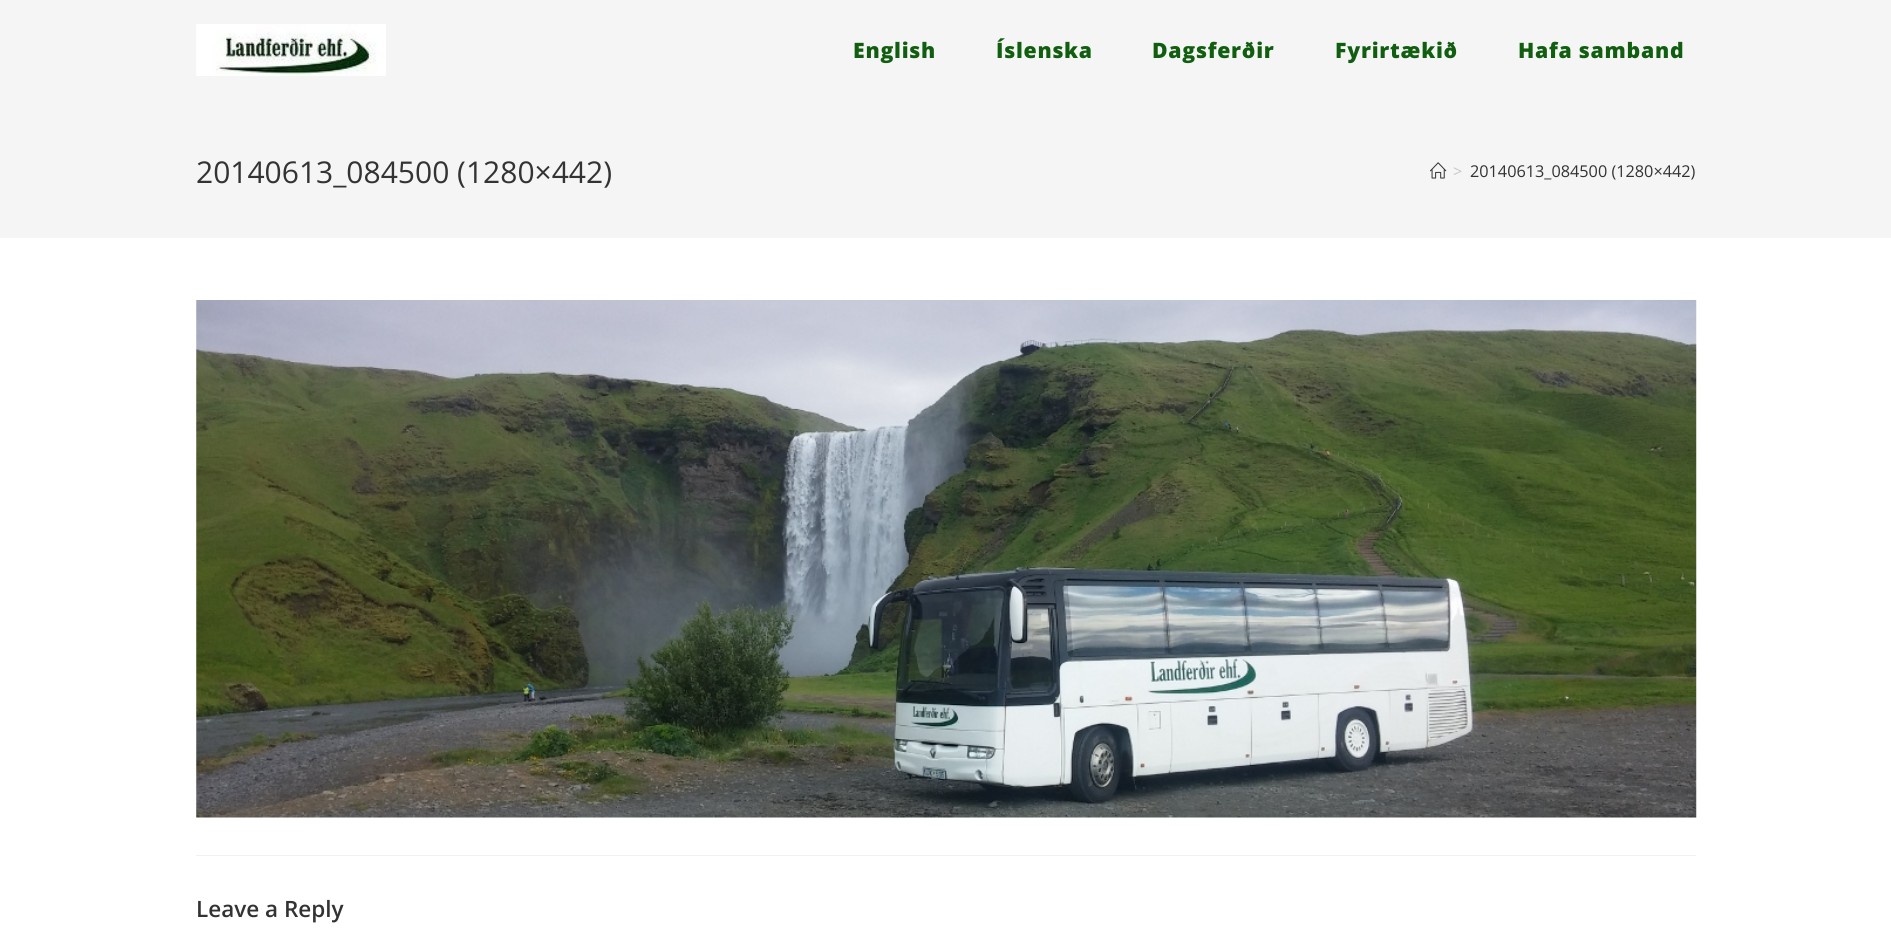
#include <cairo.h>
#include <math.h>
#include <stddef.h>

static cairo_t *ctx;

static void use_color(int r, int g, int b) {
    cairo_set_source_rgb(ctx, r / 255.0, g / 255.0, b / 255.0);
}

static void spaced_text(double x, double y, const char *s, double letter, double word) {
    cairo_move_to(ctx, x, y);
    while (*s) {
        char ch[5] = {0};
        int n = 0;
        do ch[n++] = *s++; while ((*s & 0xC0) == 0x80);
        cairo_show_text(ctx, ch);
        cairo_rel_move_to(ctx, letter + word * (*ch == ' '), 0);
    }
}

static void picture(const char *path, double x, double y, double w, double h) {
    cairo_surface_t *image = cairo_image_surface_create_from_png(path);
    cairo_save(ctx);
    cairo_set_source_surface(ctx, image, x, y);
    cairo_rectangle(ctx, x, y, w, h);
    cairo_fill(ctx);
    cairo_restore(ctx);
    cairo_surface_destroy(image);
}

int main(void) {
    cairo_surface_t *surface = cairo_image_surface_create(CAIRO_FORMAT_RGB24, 1891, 949);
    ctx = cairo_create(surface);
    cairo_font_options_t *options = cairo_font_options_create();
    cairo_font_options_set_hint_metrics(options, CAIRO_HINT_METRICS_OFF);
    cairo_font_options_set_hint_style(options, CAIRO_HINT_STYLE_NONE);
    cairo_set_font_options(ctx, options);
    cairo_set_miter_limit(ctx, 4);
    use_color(255, 255, 255);
    cairo_paint(ctx);
    use_color(245, 245, 245);
    cairo_rectangle(ctx, 0, 0, 1891, 238);
    cairo_fill(ctx);
    picture("img1.png", 196, 24, 190, 52);
    cairo_select_font_face(ctx, "Open Sans ExtraBold", CAIRO_FONT_SLANT_NORMAL, CAIRO_FONT_WEIGHT_NORMAL);
    cairo_set_font_size(ctx, 21.25);
    use_color(17, 94, 16);
    spaced_text(853, 58, "English", 0.75, 0);
    spaced_text(996, 58, "Íslenska", 0.75, 0);
    spaced_text(1152, 58, "Dagsferðir", 0.75, 0);
    spaced_text(1335, 58, "Fyrirtækið", 0.75, 0);
    spaced_text(1518, 58, "Hafa samband", 0.75, 0);
    cairo_select_font_face(ctx, "Open Sans", CAIRO_FONT_SLANT_NORMAL, CAIRO_FONT_WEIGHT_NORMAL);
    cairo_set_font_size(ctx, 30);
    use_color(51, 51, 51);
    cairo_move_to(ctx, 196, 183);
    cairo_show_text(ctx, "20140613_084500 (1280×442)");
    picture("img2.png", 1430, 162, 17, 17);
    cairo_set_font_size(ctx, 16.25);
    use_color(198, 198, 198);
    cairo_move_to(ctx, 1453, 177);
    cairo_show_text(ctx, ">");
    use_color(51, 51, 51);
    cairo_move_to(ctx, 1470, 177);
    cairo_show_text(ctx, "20140613_084500 (1280×442)");
    picture("img3.png", 196, 300, 1501, 518);
    use_color(241, 241, 241);
    cairo_rectangle(ctx, 196, 855, 1500, 1);
    cairo_fill(ctx);
    cairo_select_font_face(ctx, "Open Sans SemiBold", CAIRO_FONT_SLANT_NORMAL, CAIRO_FONT_WEIGHT_NORMAL);
    cairo_set_font_size(ctx, 22.5);
    use_color(51, 51, 51);
    cairo_move_to(ctx, 196, 917);
    cairo_show_text(ctx, "Leave a Reply");
    cairo_surface_write_to_png(surface, "result.png");
    cairo_font_options_destroy(options);
    cairo_destroy(ctx);
    cairo_surface_destroy(surface);
    return 0;
}
